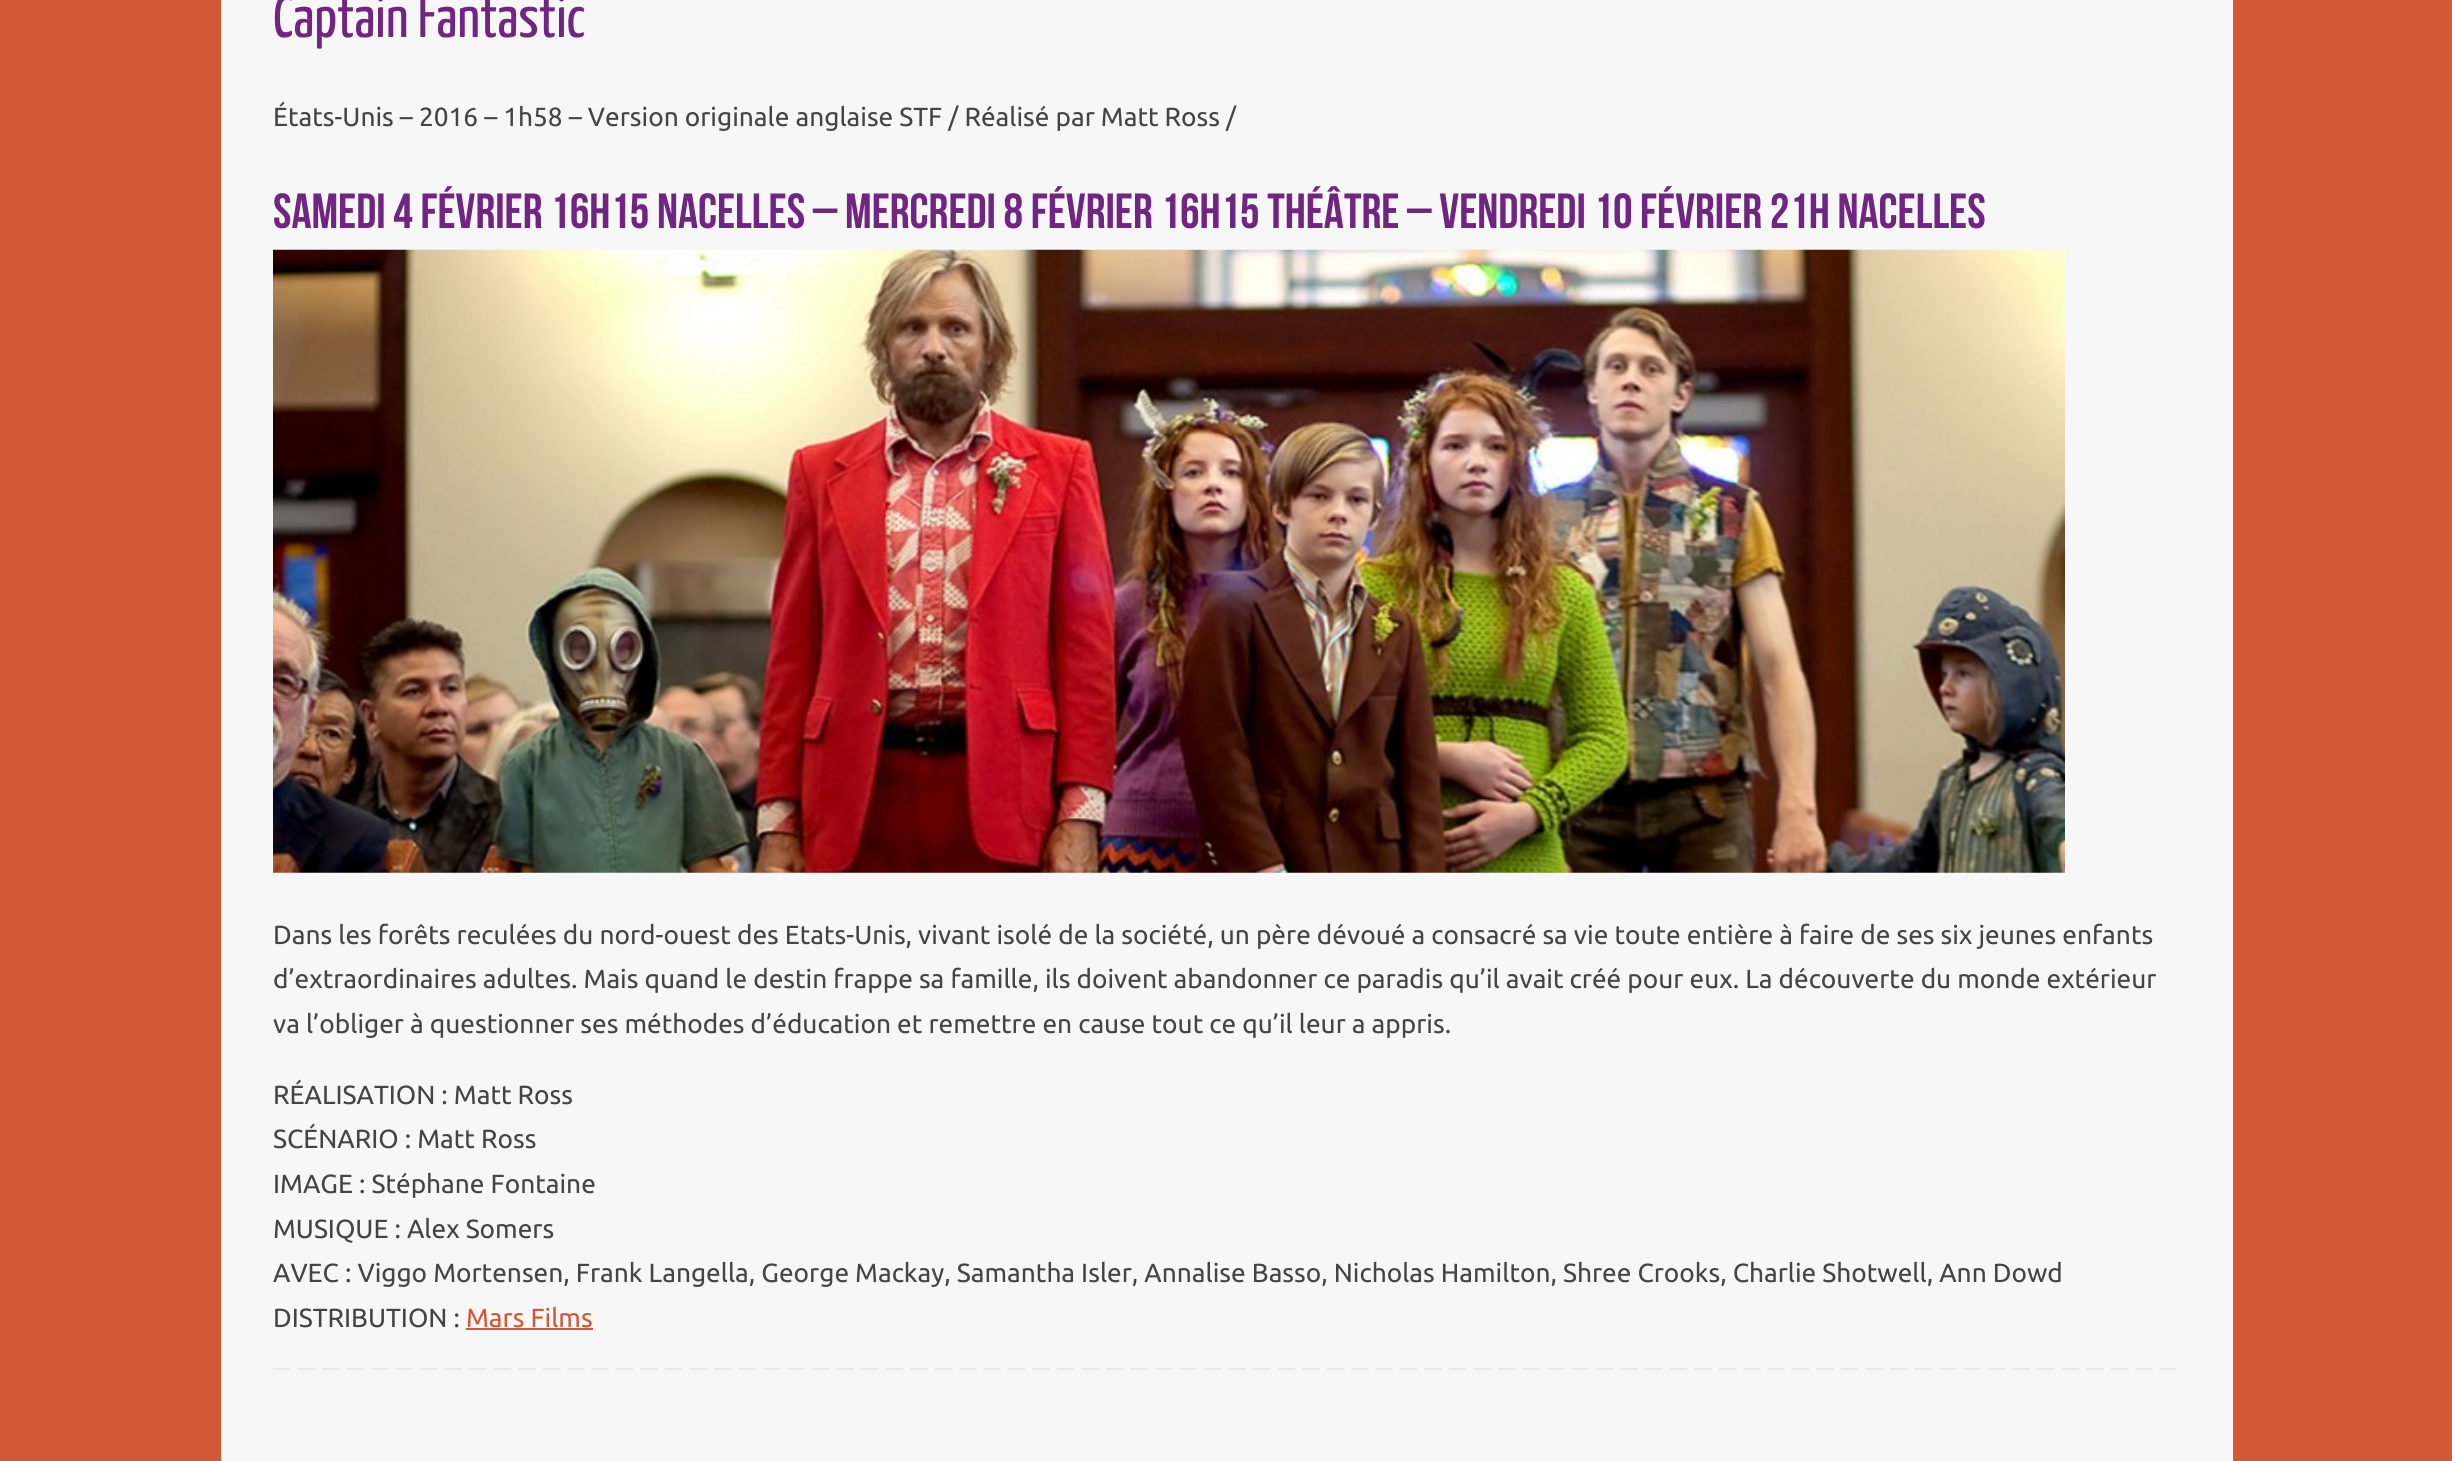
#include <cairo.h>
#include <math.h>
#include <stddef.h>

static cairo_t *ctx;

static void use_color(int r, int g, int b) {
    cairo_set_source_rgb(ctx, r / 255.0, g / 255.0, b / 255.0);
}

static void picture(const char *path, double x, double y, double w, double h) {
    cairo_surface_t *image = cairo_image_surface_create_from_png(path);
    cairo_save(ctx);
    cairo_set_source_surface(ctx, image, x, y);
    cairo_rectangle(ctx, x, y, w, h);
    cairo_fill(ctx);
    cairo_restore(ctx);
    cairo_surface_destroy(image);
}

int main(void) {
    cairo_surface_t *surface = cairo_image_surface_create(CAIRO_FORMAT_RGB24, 2452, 1461);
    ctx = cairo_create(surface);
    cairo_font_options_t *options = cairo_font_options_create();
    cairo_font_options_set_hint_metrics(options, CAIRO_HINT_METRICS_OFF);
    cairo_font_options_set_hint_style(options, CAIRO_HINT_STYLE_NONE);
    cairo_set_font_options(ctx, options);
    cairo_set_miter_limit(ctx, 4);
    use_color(208, 88, 53);
    cairo_paint(ctx);
    use_color(247, 247, 247);
    cairo_rectangle(ctx, 221, 0, 2012, 1461);
    cairo_fill(ctx);
    cairo_select_font_face(ctx, "Yanone Kaffeesatz", CAIRO_FONT_SLANT_NORMAL, CAIRO_FONT_WEIGHT_NORMAL);
    cairo_set_font_size(ctx, 59.5);
    use_color(112, 37, 131);
    cairo_move_to(ctx, 273, 37);
    cairo_show_text(ctx, "Captain Fantastic");
    cairo_select_font_face(ctx, "Ubuntu", CAIRO_FONT_SLANT_NORMAL, CAIRO_FONT_WEIGHT_NORMAL);
    cairo_set_font_size(ctx, 26.25);
    use_color(68, 68, 68);
    cairo_move_to(ctx, 273, 126);
    cairo_show_text(ctx, "États-Unis – 2016 – 1h58 – Version originale anglaise STF / Réalisé par Matt Ross /");
    cairo_select_font_face(ctx, "Bebas Neue", CAIRO_FONT_SLANT_NORMAL, CAIRO_FONT_WEIGHT_NORMAL);
    cairo_set_font_size(ctx, 49.3);
    use_color(112, 37, 131);
    cairo_move_to(ctx, 273, 228);
    cairo_show_text(ctx, "SAMEDI 4 FÉVRIER 16h15 NACELLES – MERCREDI 8 FÉVRIER 16h15 THÉÂTRE – VENDREDI 10 FÉVRIER 21h NACELLES");
    picture("img1.png", 273, 249, 1792, 624);
    cairo_select_font_face(ctx, "Ubuntu", CAIRO_FONT_SLANT_NORMAL, CAIRO_FONT_WEIGHT_NORMAL);
    cairo_set_font_size(ctx, 26.25);
    use_color(68, 68, 68);
    cairo_move_to(ctx, 273, 944);
    cairo_show_text(ctx, "Dans les forêts reculées du nord-ouest des Etats-Unis, vivant isolé de la société, un père dévoué a consacré sa vie toute entière à faire de ses six jeunes enfants");
    cairo_move_to(ctx, 273, 988);
    cairo_show_text(ctx, "d’extraordinaires adultes. Mais quand le destin frappe sa famille, ils doivent abandonner ce paradis qu’il avait créé pour eux. La découverte du monde extérieur");
    cairo_move_to(ctx, 273, 1033);
    cairo_show_text(ctx, "va l’obliger à questionner ses méthodes d’éducation et remettre en cause tout ce qu’il leur a appris.");
    cairo_move_to(ctx, 273, 1104);
    cairo_show_text(ctx, "RÉALISATION : Matt Ross");
    cairo_move_to(ctx, 273, 1148);
    cairo_show_text(ctx, "SCÉNARIO : Matt Ross");
    cairo_move_to(ctx, 273, 1193);
    cairo_show_text(ctx, "IMAGE : Stéphane Fontaine");
    cairo_move_to(ctx, 273, 1238);
    cairo_show_text(ctx, "MUSIQUE : Alex Somers");
    cairo_move_to(ctx, 273, 1282);
    cairo_show_text(ctx, "AVEC : Viggo Mortensen, Frank Langella, George Mackay, Samantha Isler, Annalise Basso, Nicholas Hamilton, Shree Crooks, Charlie Shotwell, Ann Dowd");
    cairo_move_to(ctx, 273, 1327);
    cairo_show_text(ctx, "DISTRIBUTION :");
    use_color(208, 88, 53);
    cairo_move_to(ctx, 466, 1327);
    cairo_show_text(ctx, "Mars Films");
    cairo_rectangle(ctx, 466, 1328, 127, 2);
    cairo_fill(ctx);
    picture("img2.png", 273, 1368, 1904, 2);
    cairo_surface_write_to_png(surface, "result.png");
    cairo_font_options_destroy(options);
    cairo_destroy(ctx);
    cairo_surface_destroy(surface);
    return 0;
}
